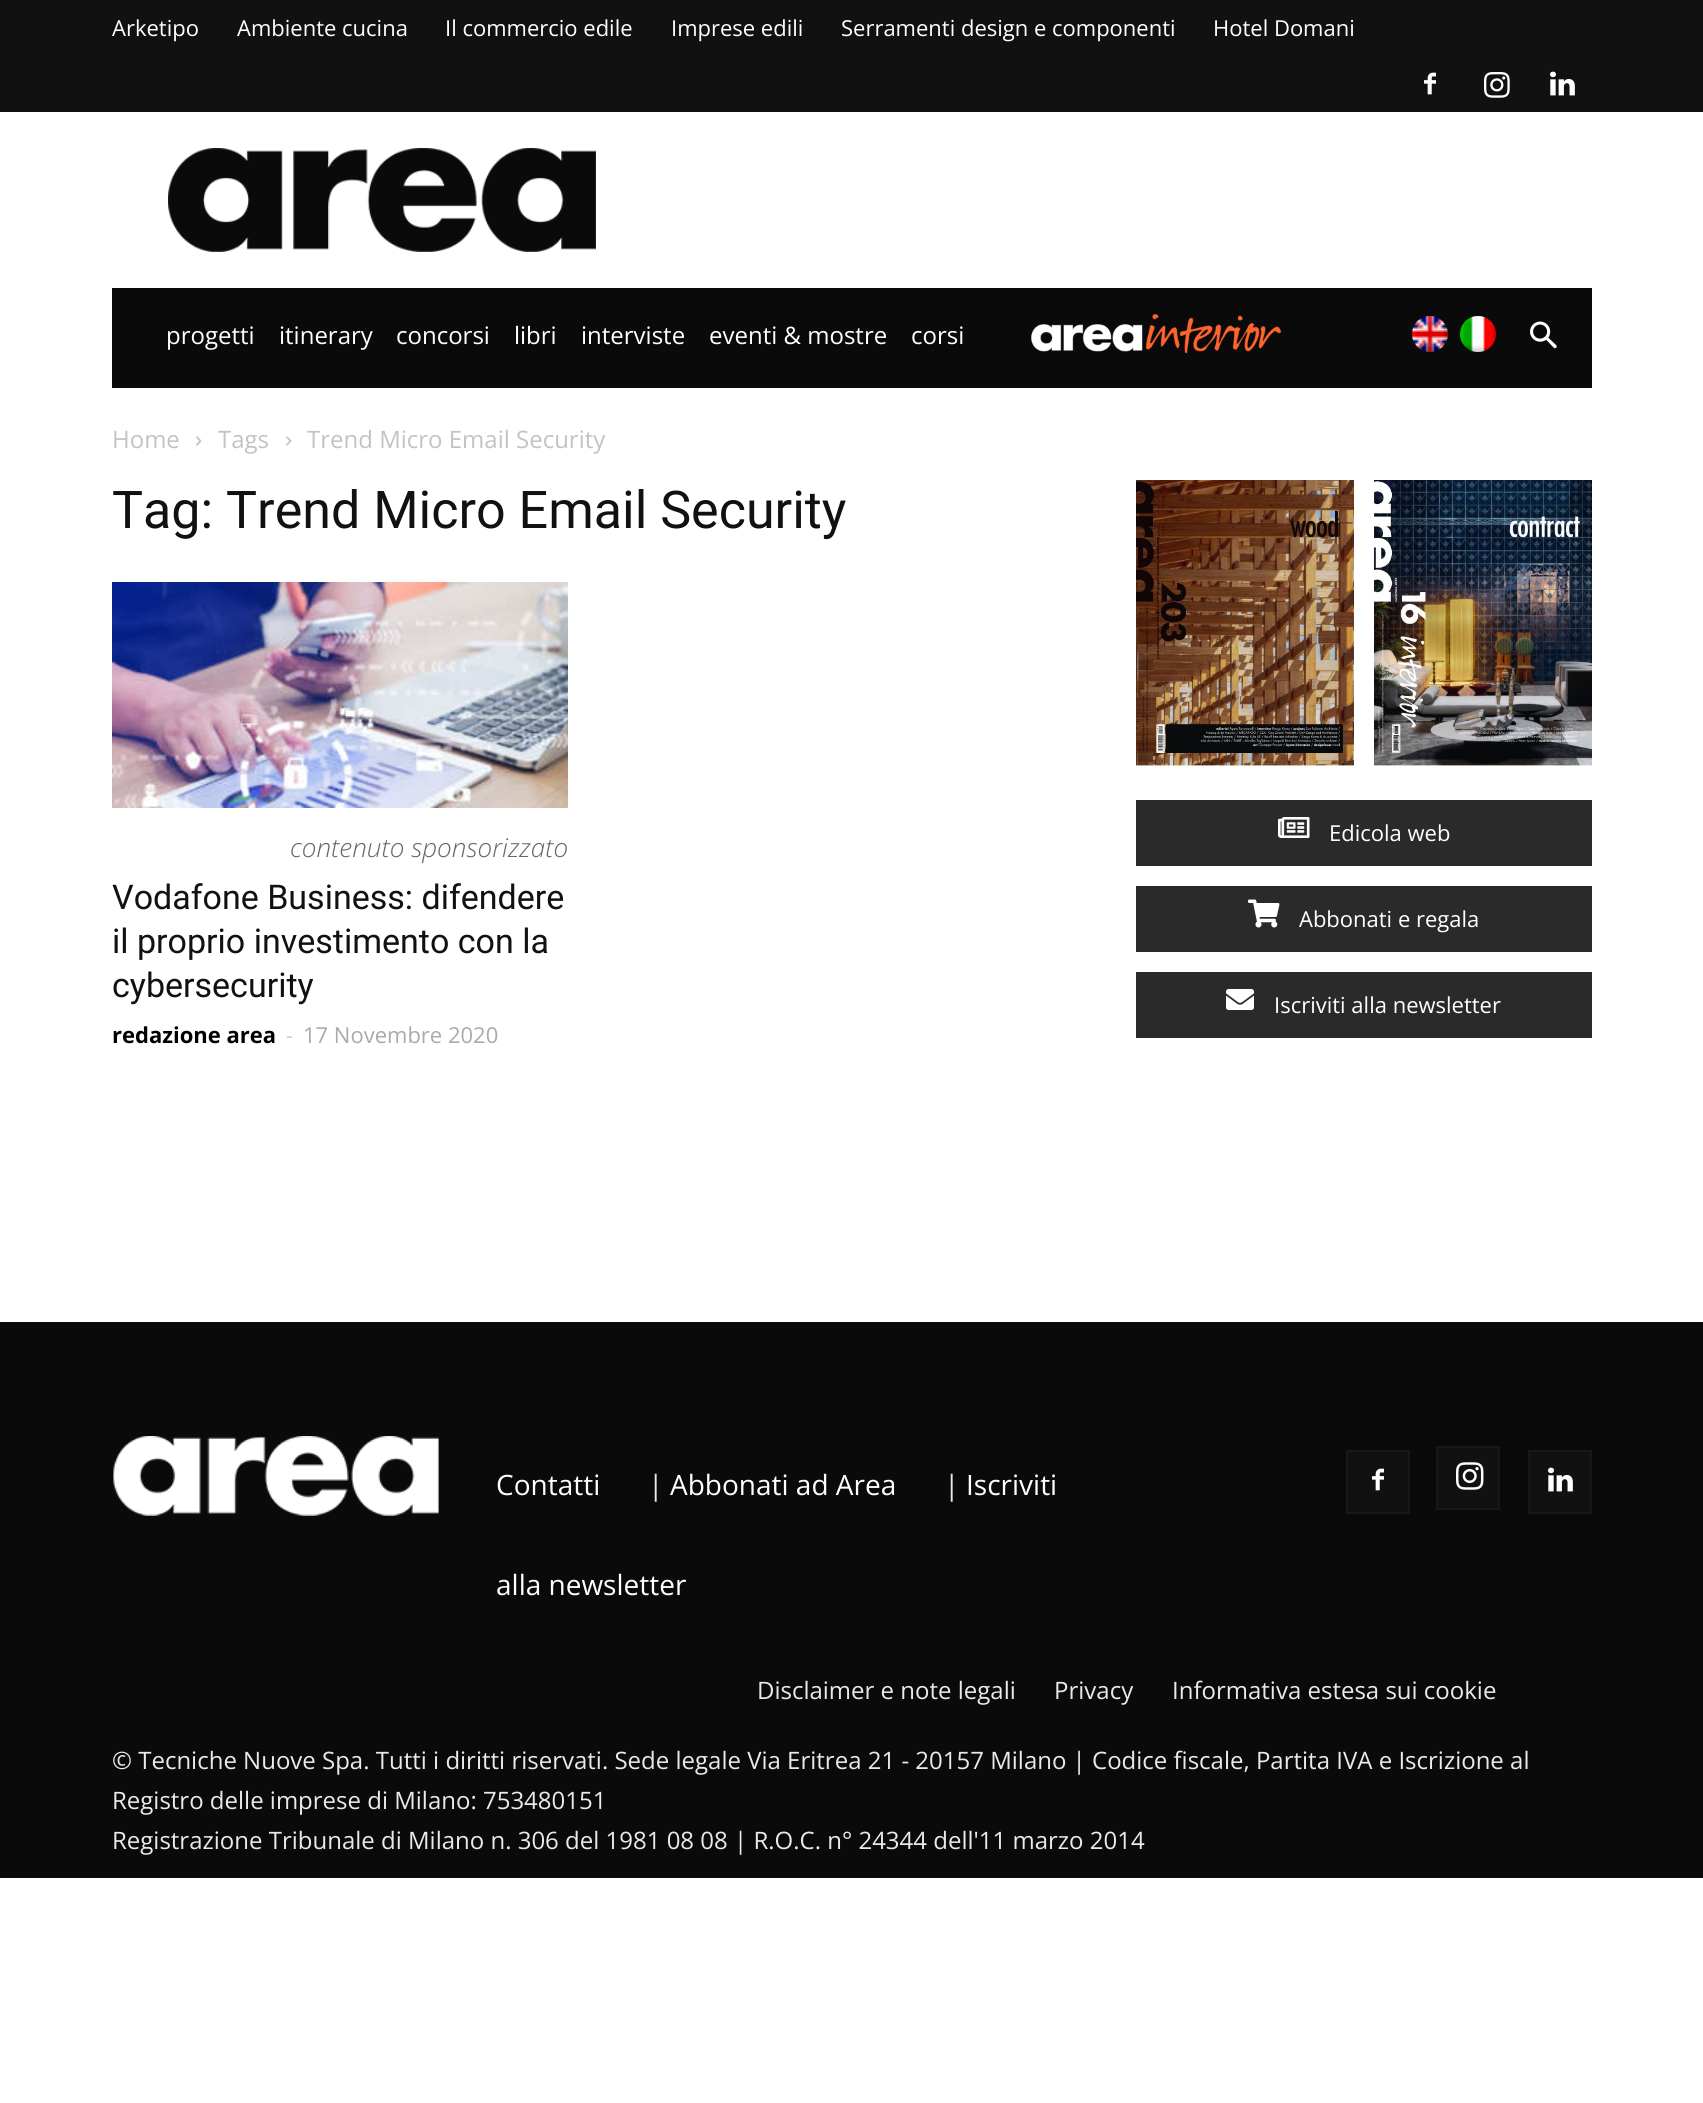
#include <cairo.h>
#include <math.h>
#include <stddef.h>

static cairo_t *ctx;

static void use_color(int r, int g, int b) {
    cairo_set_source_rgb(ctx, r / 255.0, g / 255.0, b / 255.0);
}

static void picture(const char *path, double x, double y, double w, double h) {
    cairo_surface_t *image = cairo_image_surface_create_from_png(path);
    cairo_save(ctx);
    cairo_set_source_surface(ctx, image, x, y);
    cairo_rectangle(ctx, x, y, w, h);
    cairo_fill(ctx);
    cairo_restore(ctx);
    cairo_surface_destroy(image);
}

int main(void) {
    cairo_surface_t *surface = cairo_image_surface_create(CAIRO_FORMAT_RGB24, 1703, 2103);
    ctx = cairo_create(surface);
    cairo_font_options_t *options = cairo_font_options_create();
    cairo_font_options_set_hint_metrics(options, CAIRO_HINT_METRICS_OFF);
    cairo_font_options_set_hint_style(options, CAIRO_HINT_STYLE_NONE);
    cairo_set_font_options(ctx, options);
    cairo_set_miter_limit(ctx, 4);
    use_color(255, 255, 255);
    cairo_paint(ctx);
    use_color(17, 17, 17);
    cairo_rectangle(ctx, 0, 0, 1703, 112);
    cairo_fill(ctx);
    cairo_select_font_face(ctx, "Open Sans", CAIRO_FONT_SLANT_NORMAL, CAIRO_FONT_WEIGHT_NORMAL);
    cairo_set_font_size(ctx, 22);
    use_color(255, 255, 255);
    cairo_move_to(ctx, 112, 36);
    cairo_show_text(ctx, "Arketipo");
    cairo_move_to(ctx, 237, 36);
    cairo_show_text(ctx, "Ambiente cucina");
    cairo_move_to(ctx, 445, 36);
    cairo_show_text(ctx, "Il commercio edile");
    cairo_move_to(ctx, 671, 36);
    cairo_show_text(ctx, "Imprese edili");
    cairo_move_to(ctx, 841, 36);
    cairo_show_text(ctx, "Serramenti design e componenti");
    cairo_move_to(ctx, 1213, 36);
    cairo_show_text(ctx, "Hotel Domani");
    picture("img1.png", 1424, 72, 12, 23);
    picture("img2.png", 1484, 72, 26, 26);
    picture("img3.png", 1550, 71, 25, 25);
    picture("img4.png", 168, 148, 428, 104);
    use_color(10, 10, 10);
    cairo_rectangle(ctx, 112, 288, 1480, 100);
    cairo_fill(ctx);
    cairo_set_font_size(ctx, 24);
    use_color(255, 255, 255);
    cairo_move_to(ctx, 166, 344);
    cairo_show_text(ctx, "progetti");
    cairo_move_to(ctx, 279, 344);
    cairo_show_text(ctx, "itinerary");
    cairo_move_to(ctx, 396, 344);
    cairo_show_text(ctx, "concorsi");
    cairo_move_to(ctx, 514, 344);
    cairo_show_text(ctx, "libri");
    cairo_move_to(ctx, 581, 344);
    cairo_show_text(ctx, "interviste");
    cairo_move_to(ctx, 709, 344);
    cairo_show_text(ctx, "eventi & mostre");
    cairo_move_to(ctx, 911, 344);
    cairo_show_text(ctx, "corsi");
    picture("img5.png", 1031, 314, 251, 40);
    picture("img6.png", 1412, 316, 36, 36);
    picture("img7.png", 1460, 316, 36, 36);
    picture("img8.png", 1530, 321, 27, 28);
    use_color(195, 195, 195);
    cairo_move_to(ctx, 112, 448);
    cairo_show_text(ctx, "Home");
    picture("img9.png", 196, 436, 6, 10);
    cairo_move_to(ctx, 218, 448);
    cairo_show_text(ctx, "Tags");
    picture("img9.png", 286, 436, 6, 10);
    cairo_move_to(ctx, 307, 448);
    cairo_show_text(ctx, "Trend Micro Email Security");
    cairo_select_font_face(ctx, "Roboto", CAIRO_FONT_SLANT_NORMAL, CAIRO_FONT_WEIGHT_NORMAL);
    cairo_set_font_size(ctx, 52);
    use_color(17, 17, 17);
    cairo_move_to(ctx, 112, 528);
    cairo_show_text(ctx, "Tag: Trend Micro Email Security");
    picture("img10.png", 112, 582, 456, 226);
    cairo_select_font_face(ctx, "Open Sans Light", CAIRO_FONT_SLANT_ITALIC, CAIRO_FONT_WEIGHT_NORMAL);
    cairo_set_font_size(ctx, 26);
    use_color(102, 102, 102);
    cairo_move_to(ctx, 290, 857);
    cairo_show_text(ctx, "contenuto sponsorizzato");
    cairo_select_font_face(ctx, "Roboto", CAIRO_FONT_SLANT_NORMAL, CAIRO_FONT_WEIGHT_NORMAL);
    cairo_set_font_size(ctx, 34);
    use_color(17, 17, 17);
    cairo_move_to(ctx, 112, 909);
    cairo_show_text(ctx, "Vodafone Business: difendere");
    cairo_move_to(ctx, 112, 953);
    cairo_show_text(ctx, "il proprio investimento con la");
    cairo_move_to(ctx, 112, 997);
    cairo_show_text(ctx, "cybersecurity");
    cairo_select_font_face(ctx, "Open Sans", CAIRO_FONT_SLANT_NORMAL, CAIRO_FONT_WEIGHT_BOLD);
    cairo_set_font_size(ctx, 22);
    use_color(0, 0, 0);
    cairo_move_to(ctx, 112, 1043);
    cairo_show_text(ctx, "redazione area");
    cairo_select_font_face(ctx, "Open Sans", CAIRO_FONT_SLANT_NORMAL, CAIRO_FONT_WEIGHT_NORMAL);
    use_color(204, 204, 204);
    cairo_move_to(ctx, 286, 1043);
    cairo_show_text(ctx, "-");
    use_color(170, 170, 170);
    cairo_move_to(ctx, 303, 1043);
    cairo_show_text(ctx, "17 Novembre 2020");
    picture("img11.png", 1136, 480, 218, 286);
    picture("img12.png", 1374, 480, 218, 286);
    use_color(42, 42, 42);
    cairo_rectangle(ctx, 1136, 800, 456, 66);
    cairo_fill(ctx);
    picture("img13.png", 1278, 817, 32, 21);
    use_color(255, 255, 255);
    cairo_move_to(ctx, 1329, 841);
    cairo_show_text(ctx, "Edicola web");
    use_color(42, 42, 42);
    cairo_rectangle(ctx, 1136, 886, 456, 66);
    cairo_fill(ctx);
    picture("img14.png", 1248, 899, 32, 29);
    use_color(255, 255, 255);
    cairo_move_to(ctx, 1299, 927);
    cairo_show_text(ctx, "Abbonati e regala");
    use_color(42, 42, 42);
    cairo_rectangle(ctx, 1136, 972, 456, 66);
    cairo_fill(ctx);
    picture("img15.png", 1226, 989, 28, 21);
    use_color(255, 255, 255);
    cairo_move_to(ctx, 1274, 1013);
    cairo_show_text(ctx, "Iscriviti alla newsletter");
    use_color(10, 10, 10);
    cairo_rectangle(ctx, 0, 1322, 1703, 556);
    cairo_fill(ctx);
    picture("img16.png", 113, 1436, 326, 80);
    cairo_set_font_size(ctx, 28);
    use_color(255, 255, 255);
    cairo_move_to(ctx, 496, 1495);
    cairo_show_text(ctx, "Contatti");
    use_color(234, 234, 234);
    cairo_move_to(ctx, 648, 1495);
    cairo_show_text(ctx, "|");
    use_color(255, 255, 255);
    cairo_move_to(ctx, 670, 1495);
    cairo_show_text(ctx, "Abbonati ad Area");
    use_color(234, 234, 234);
    cairo_move_to(ctx, 944, 1495);
    cairo_show_text(ctx, "|");
    use_color(255, 255, 255);
    cairo_move_to(ctx, 966, 1495);
    cairo_show_text(ctx, "Iscriviti");
    cairo_move_to(ctx, 496, 1595);
    cairo_show_text(ctx, "alla newsletter");
    use_color(17, 17, 17);
    cairo_rectangle(ctx, 1348, 1452, 60, 60);
    cairo_fill(ctx);
    picture("img1.png", 1372, 1468, 12, 23);
    cairo_rectangle(ctx, 1347, 1451, 62, 62);
    use_color(24, 24, 24);
    cairo_stroke(ctx);
    use_color(17, 17, 17);
    cairo_rectangle(ctx, 1438, 1448, 60, 60);
    cairo_fill(ctx);
    picture("img17.png", 1456, 1462, 28, 28);
    cairo_rectangle(ctx, 1437, 1447, 62, 62);
    use_color(24, 24, 24);
    cairo_stroke(ctx);
    use_color(17, 17, 17);
    cairo_rectangle(ctx, 1530, 1452, 60, 60);
    cairo_fill(ctx);
    picture("img3.png", 1548, 1467, 25, 25);
    cairo_rectangle(ctx, 1529, 1451, 62, 62);
    use_color(24, 24, 24);
    cairo_stroke(ctx);
    cairo_set_font_size(ctx, 24);
    use_color(234, 234, 234);
    cairo_move_to(ctx, 757, 1699);
    cairo_show_text(ctx, "Disclaimer e note legali");
    cairo_move_to(ctx, 1054, 1699);
    cairo_show_text(ctx, "Privacy");
    cairo_move_to(ctx, 1172, 1699);
    cairo_show_text(ctx, "Informativa estesa sui cookie");
    cairo_move_to(ctx, 112, 1769);
    cairo_show_text(ctx, "© Tecniche Nuove Spa. Tutti i diritti riservati. Sede legale Via Eritrea 21 - 20157 Milano | Codice fiscale, Partita IVA e Iscrizione al");
    cairo_move_to(ctx, 112, 1809);
    cairo_show_text(ctx, "Registro delle imprese di Milano: 753480151");
    cairo_move_to(ctx, 112, 1849);
    cairo_show_text(ctx, "Registrazione Tribunale di Milano n. 306 del 1981 08 08 | R.O.C. n° 24344 dell'11 marzo 2014");
    cairo_surface_write_to_png(surface, "result.png");
    cairo_font_options_destroy(options);
    cairo_destroy(ctx);
    cairo_surface_destroy(surface);
    return 0;
}
